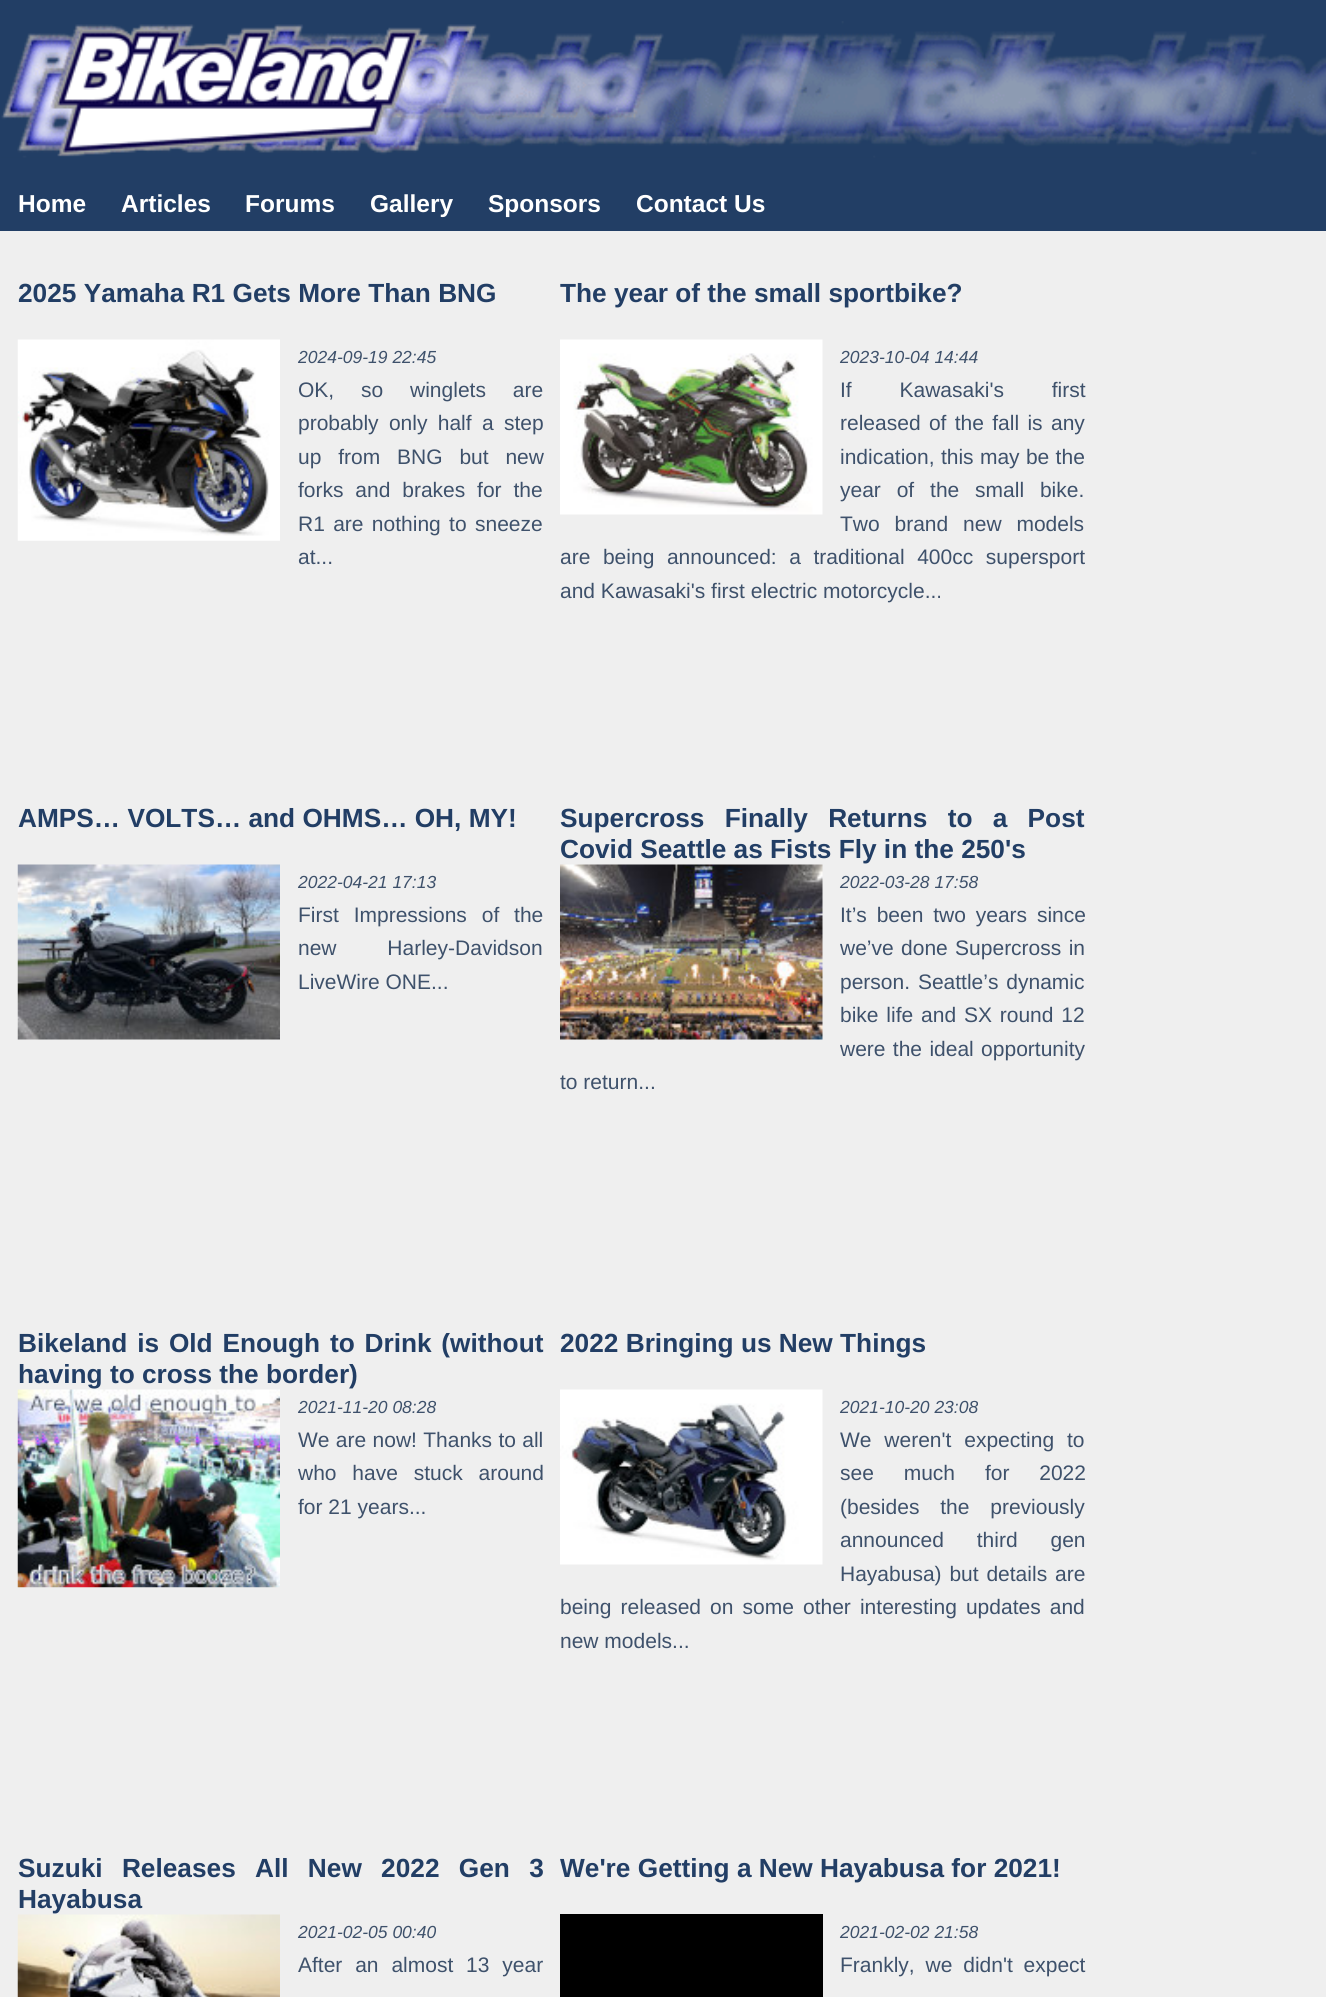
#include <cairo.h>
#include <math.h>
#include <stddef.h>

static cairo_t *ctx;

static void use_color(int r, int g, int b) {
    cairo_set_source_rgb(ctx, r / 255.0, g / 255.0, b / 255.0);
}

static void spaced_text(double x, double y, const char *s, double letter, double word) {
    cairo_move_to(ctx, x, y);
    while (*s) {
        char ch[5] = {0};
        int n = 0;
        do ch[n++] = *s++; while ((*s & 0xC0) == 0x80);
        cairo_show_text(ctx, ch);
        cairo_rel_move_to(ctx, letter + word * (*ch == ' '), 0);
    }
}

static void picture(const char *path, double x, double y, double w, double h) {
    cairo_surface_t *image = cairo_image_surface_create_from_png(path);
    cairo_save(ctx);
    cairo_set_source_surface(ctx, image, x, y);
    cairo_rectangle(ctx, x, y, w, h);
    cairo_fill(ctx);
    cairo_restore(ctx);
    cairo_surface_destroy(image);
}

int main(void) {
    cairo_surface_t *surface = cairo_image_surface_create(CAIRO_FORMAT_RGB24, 1326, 1997);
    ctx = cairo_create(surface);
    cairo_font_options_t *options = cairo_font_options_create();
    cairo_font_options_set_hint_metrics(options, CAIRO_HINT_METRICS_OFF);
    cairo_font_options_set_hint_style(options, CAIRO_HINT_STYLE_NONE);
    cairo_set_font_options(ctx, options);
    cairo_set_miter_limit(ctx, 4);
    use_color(239, 239, 239);
    cairo_paint(ctx);
    use_color(34, 62, 101);
    cairo_rectangle(ctx, 0, 0, 1326, 231);
    cairo_fill(ctx);
    picture("img1.png", 1, 21, 1325, 137);
    cairo_select_font_face(ctx, "Liberation Sans", CAIRO_FONT_SLANT_NORMAL, CAIRO_FONT_WEIGHT_BOLD);
    cairo_set_font_size(ctx, 24.5);
    use_color(255, 255, 255);
    cairo_move_to(ctx, 18, 212);
    cairo_show_text(ctx, "Home");
    cairo_move_to(ctx, 121, 212);
    cairo_show_text(ctx, "Articles");
    cairo_move_to(ctx, 245, 212);
    cairo_show_text(ctx, "Forums");
    cairo_move_to(ctx, 370, 212);
    cairo_show_text(ctx, "Gallery");
    cairo_move_to(ctx, 488, 212);
    cairo_show_text(ctx, "Sponsors");
    cairo_move_to(ctx, 636, 212);
    cairo_show_text(ctx, "Contact Us");
    cairo_set_font_size(ctx, 26.25);
    use_color(34, 62, 101);
    cairo_move_to(ctx, 18, 302);
    cairo_show_text(ctx, "2025 Yamaha R1 Gets More Than BNG");
    picture("img2.png", 17, 339, 263, 202);
    cairo_select_font_face(ctx, "Liberation Sans", CAIRO_FONT_SLANT_ITALIC, CAIRO_FONT_WEIGHT_NORMAL);
    cairo_set_font_size(ctx, 17.5);
    use_color(62, 81, 107);
    cairo_move_to(ctx, 298, 363);
    cairo_show_text(ctx, "2024-09-19 22:45");
    cairo_select_font_face(ctx, "Liberation Sans", CAIRO_FONT_SLANT_NORMAL, CAIRO_FONT_WEIGHT_NORMAL);
    cairo_set_font_size(ctx, 21);
    spaced_text(298, 397, "OK, so winglets are", 0, 21);
    spaced_text(298, 430, "probably only half a step", 0, 4.5);
    spaced_text(298, 464, "up from BNG but new", 0, 11);
    spaced_text(298, 497, "forks and brakes for the", 0, 6);
    spaced_text(298, 531, "R1 are nothing to sneeze", 0, 2.5);
    cairo_move_to(ctx, 298, 564);
    cairo_show_text(ctx, "at...");
    cairo_select_font_face(ctx, "Liberation Sans", CAIRO_FONT_SLANT_NORMAL, CAIRO_FONT_WEIGHT_BOLD);
    cairo_set_font_size(ctx, 26.25);
    use_color(34, 62, 101);
    cairo_move_to(ctx, 560, 302);
    cairo_show_text(ctx, "The year of the small sportbike?");
    picture("img3.png", 560, 339, 263, 176);
    cairo_select_font_face(ctx, "Liberation Sans", CAIRO_FONT_SLANT_ITALIC, CAIRO_FONT_WEIGHT_NORMAL);
    cairo_set_font_size(ctx, 17.5);
    use_color(62, 81, 107);
    cairo_move_to(ctx, 840, 363);
    cairo_show_text(ctx, "2023-10-04 14:44");
    cairo_select_font_face(ctx, "Liberation Sans", CAIRO_FONT_SLANT_NORMAL, CAIRO_FONT_WEIGHT_NORMAL);
    cairo_set_font_size(ctx, 21);
    spaced_text(840, 397, "If Kawasaki's first", 0, 42);
    spaced_text(840, 430, "released of the fall is any", 0, 2.5);
    spaced_text(840, 464, "indication, this may be the", 0, 0.5);
    spaced_text(840, 497, "year of the small bike.", 0, 10);
    spaced_text(840, 531, "Two brand new models", 0, 9);
    spaced_text(560, 564, "are being announced: a traditional 400cc supersport", 0, 6.75);
    cairo_move_to(ctx, 560, 598);
    cairo_show_text(ctx, "and Kawasaki's first electric motorcycle...");
    cairo_select_font_face(ctx, "Liberation Sans", CAIRO_FONT_SLANT_NORMAL, CAIRO_FONT_WEIGHT_BOLD);
    cairo_set_font_size(ctx, 26.25);
    use_color(34, 62, 101);
    cairo_move_to(ctx, 18, 827);
    cairo_show_text(ctx, "AMPS… VOLTS… and OHMS… OH, MY!");
    picture("img4.png", 17, 864, 263, 176);
    cairo_select_font_face(ctx, "Liberation Sans", CAIRO_FONT_SLANT_ITALIC, CAIRO_FONT_WEIGHT_NORMAL);
    cairo_set_font_size(ctx, 17.5);
    use_color(62, 81, 107);
    cairo_move_to(ctx, 298, 888);
    cairo_show_text(ctx, "2022-04-21 17:13");
    cairo_select_font_face(ctx, "Liberation Sans", CAIRO_FONT_SLANT_NORMAL, CAIRO_FONT_WEIGHT_NORMAL);
    cairo_set_font_size(ctx, 21);
    spaced_text(298, 922, "First Impressions of the", 0, 9);
    spaced_text(298, 955, "new Harley-Davidson", 0, 45);
    cairo_move_to(ctx, 298, 989);
    cairo_show_text(ctx, "LiveWire ONE...");
    cairo_select_font_face(ctx, "Liberation Sans", CAIRO_FONT_SLANT_NORMAL, CAIRO_FONT_WEIGHT_BOLD);
    cairo_set_font_size(ctx, 26.25);
    use_color(34, 62, 101);
    spaced_text(560, 827, "Supercross Finally Returns to a Post", 0, 13);
    cairo_move_to(ctx, 560, 858);
    cairo_show_text(ctx, "Covid Seattle as Fists Fly in the 250's");
    picture("img5.png", 560, 864, 263, 176);
    cairo_select_font_face(ctx, "Liberation Sans", CAIRO_FONT_SLANT_ITALIC, CAIRO_FONT_WEIGHT_NORMAL);
    cairo_set_font_size(ctx, 17.5);
    use_color(62, 81, 107);
    cairo_move_to(ctx, 840, 888);
    cairo_show_text(ctx, "2022-03-28 17:58");
    cairo_select_font_face(ctx, "Liberation Sans", CAIRO_FONT_SLANT_NORMAL, CAIRO_FONT_WEIGHT_NORMAL);
    cairo_set_font_size(ctx, 21);
    spaced_text(840, 922, "It’s been two years since", 0, 4);
    spaced_text(840, 955, "we’ve done Supercross in", 0, 1.5);
    spaced_text(840, 989, "person. Seattle’s dynamic", 0, 2);
    spaced_text(840, 1022, "bike life and SX round 12", 0, 2);
    spaced_text(840, 1056, "were the ideal opportunity", 0, 1.5);
    cairo_move_to(ctx, 560, 1089);
    cairo_show_text(ctx, "to return...");
    cairo_select_font_face(ctx, "Liberation Sans", CAIRO_FONT_SLANT_NORMAL, CAIRO_FONT_WEIGHT_BOLD);
    cairo_set_font_size(ctx, 26.25);
    use_color(34, 62, 101);
    spaced_text(18, 1352, "Bikeland is Old Enough to Drink (without", 0, 2.5);
    cairo_move_to(ctx, 18, 1383);
    cairo_show_text(ctx, "having to cross the border)");
    picture("img6.png", 17, 1389, 263, 199);
    cairo_select_font_face(ctx, "Liberation Sans", CAIRO_FONT_SLANT_ITALIC, CAIRO_FONT_WEIGHT_NORMAL);
    cairo_set_font_size(ctx, 17.5);
    use_color(62, 81, 107);
    cairo_move_to(ctx, 298, 1413);
    cairo_show_text(ctx, "2021-11-20 08:28");
    cairo_select_font_face(ctx, "Liberation Sans", CAIRO_FONT_SLANT_NORMAL, CAIRO_FONT_WEIGHT_NORMAL);
    cairo_set_font_size(ctx, 21);
    spaced_text(298, 1447, "We are now! Thanks to all", 0, 0.5);
    spaced_text(298, 1480, "who have stuck around", 0, 10);
    cairo_move_to(ctx, 298, 1514);
    cairo_show_text(ctx, "for 21 years...");
    cairo_select_font_face(ctx, "Liberation Sans", CAIRO_FONT_SLANT_NORMAL, CAIRO_FONT_WEIGHT_BOLD);
    cairo_set_font_size(ctx, 26.25);
    use_color(34, 62, 101);
    cairo_move_to(ctx, 560, 1352);
    cairo_show_text(ctx, "2022 Bringing us New Things");
    picture("img7.png", 560, 1389, 263, 176);
    cairo_select_font_face(ctx, "Liberation Sans", CAIRO_FONT_SLANT_ITALIC, CAIRO_FONT_WEIGHT_NORMAL);
    cairo_set_font_size(ctx, 17.5);
    use_color(62, 81, 107);
    cairo_move_to(ctx, 840, 1413);
    cairo_show_text(ctx, "2021-10-20 23:08");
    cairo_select_font_face(ctx, "Liberation Sans", CAIRO_FONT_SLANT_NORMAL, CAIRO_FONT_WEIGHT_NORMAL);
    cairo_set_font_size(ctx, 21);
    spaced_text(840, 1447, "We weren't expecting to", 0, 7);
    spaced_text(840, 1480, "see much for 2022", 0, 24);
    spaced_text(840, 1514, "(besides the previously", 0, 15);
    spaced_text(840, 1547, "announced third gen", 0, 27);
    spaced_text(840, 1581, "Hayabusa) but details are", 0, 2);
    spaced_text(560, 1614, "being released on some other interesting updates and", 0, 3.25);
    cairo_move_to(ctx, 560, 1648);
    cairo_show_text(ctx, "new models...");
    cairo_select_font_face(ctx, "Liberation Sans", CAIRO_FONT_SLANT_NORMAL, CAIRO_FONT_WEIGHT_BOLD);
    cairo_set_font_size(ctx, 26.25);
    use_color(34, 62, 101);
    spaced_text(18, 1877, "Suzuki Releases All New 2022 Gen 3", 0, 12);
    cairo_move_to(ctx, 18, 1908);
    cairo_show_text(ctx, "Hayabusa");
    picture("img8.png", 17, 1914, 263, 83);
    cairo_select_font_face(ctx, "Liberation Sans", CAIRO_FONT_SLANT_ITALIC, CAIRO_FONT_WEIGHT_NORMAL);
    cairo_set_font_size(ctx, 17.5);
    use_color(62, 81, 107);
    cairo_move_to(ctx, 298, 1938);
    cairo_show_text(ctx, "2021-02-05 00:40");
    cairo_select_font_face(ctx, "Liberation Sans", CAIRO_FONT_SLANT_NORMAL, CAIRO_FONT_WEIGHT_NORMAL);
    cairo_set_font_size(ctx, 21);
    spaced_text(298, 1972, "After an almost 13 year", 0, 7);
    cairo_select_font_face(ctx, "Liberation Sans", CAIRO_FONT_SLANT_NORMAL, CAIRO_FONT_WEIGHT_BOLD);
    cairo_set_font_size(ctx, 26.25);
    use_color(34, 62, 101);
    cairo_move_to(ctx, 560, 1877);
    cairo_show_text(ctx, "We're Getting a New Hayabusa for 2021!");
    use_color(0, 0, 0);
    cairo_rectangle(ctx, 560, 1914, 263, 83);
    cairo_fill(ctx);
    cairo_select_font_face(ctx, "Liberation Sans", CAIRO_FONT_SLANT_ITALIC, CAIRO_FONT_WEIGHT_NORMAL);
    cairo_set_font_size(ctx, 17.5);
    use_color(62, 81, 107);
    cairo_move_to(ctx, 840, 1938);
    cairo_show_text(ctx, "2021-02-02 21:58");
    cairo_select_font_face(ctx, "Liberation Sans", CAIRO_FONT_SLANT_NORMAL, CAIRO_FONT_WEIGHT_NORMAL);
    cairo_set_font_size(ctx, 21);
    spaced_text(840, 1972, "Frankly, we didn't expect", 0, 5);
    cairo_surface_write_to_png(surface, "result.png");
    cairo_font_options_destroy(options);
    cairo_destroy(ctx);
    cairo_surface_destroy(surface);
    return 0;
}
